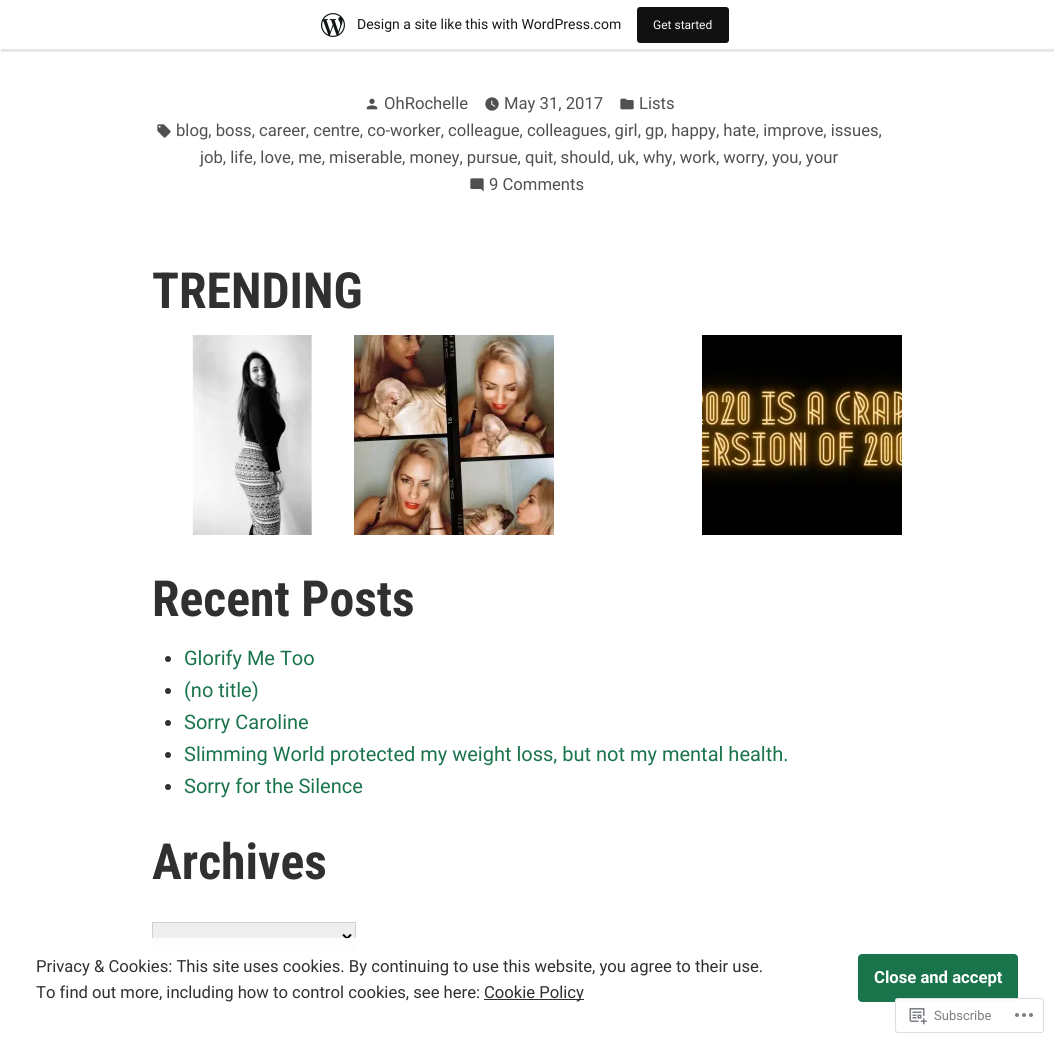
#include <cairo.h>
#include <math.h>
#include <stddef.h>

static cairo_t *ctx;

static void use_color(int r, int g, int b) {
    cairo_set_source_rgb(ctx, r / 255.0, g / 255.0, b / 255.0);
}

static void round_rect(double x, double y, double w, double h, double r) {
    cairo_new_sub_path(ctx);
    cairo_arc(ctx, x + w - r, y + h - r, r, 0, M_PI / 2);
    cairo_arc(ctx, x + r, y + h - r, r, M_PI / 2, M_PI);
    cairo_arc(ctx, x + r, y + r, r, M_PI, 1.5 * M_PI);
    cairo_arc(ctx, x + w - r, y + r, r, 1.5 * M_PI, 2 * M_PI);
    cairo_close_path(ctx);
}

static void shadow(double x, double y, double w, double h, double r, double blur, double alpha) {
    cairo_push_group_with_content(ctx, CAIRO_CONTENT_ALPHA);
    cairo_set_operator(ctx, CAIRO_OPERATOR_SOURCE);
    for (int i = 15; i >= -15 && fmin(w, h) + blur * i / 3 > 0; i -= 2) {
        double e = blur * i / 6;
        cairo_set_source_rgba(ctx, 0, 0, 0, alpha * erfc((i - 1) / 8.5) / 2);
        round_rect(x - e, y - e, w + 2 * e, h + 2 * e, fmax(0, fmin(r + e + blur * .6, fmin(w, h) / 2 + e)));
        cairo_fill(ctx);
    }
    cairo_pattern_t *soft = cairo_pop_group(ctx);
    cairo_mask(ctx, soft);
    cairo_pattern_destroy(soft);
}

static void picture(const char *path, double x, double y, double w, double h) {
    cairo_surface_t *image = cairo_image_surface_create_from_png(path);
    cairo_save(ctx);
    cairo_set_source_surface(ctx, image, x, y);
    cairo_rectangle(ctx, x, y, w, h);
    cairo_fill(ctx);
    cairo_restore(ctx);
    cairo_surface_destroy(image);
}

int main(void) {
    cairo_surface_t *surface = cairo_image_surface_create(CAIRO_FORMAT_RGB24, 1054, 1043);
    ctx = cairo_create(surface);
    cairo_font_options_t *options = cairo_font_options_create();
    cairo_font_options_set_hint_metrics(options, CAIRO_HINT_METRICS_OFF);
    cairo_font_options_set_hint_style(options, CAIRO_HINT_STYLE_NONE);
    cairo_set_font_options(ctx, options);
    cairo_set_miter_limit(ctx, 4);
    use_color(255, 255, 255);
    cairo_paint(ctx);
    use_color(0, 0, 0);
    shadow(0, 1, 1054, 49, 0, 1, 0.05);
    cairo_set_source_rgba(ctx, 0, 0, 0, 0.08);
    cairo_new_path(ctx);
    cairo_move_to(ctx, 1, 49);
    cairo_line_to(ctx, 1, 52);
    cairo_line_to(ctx, 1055, 52);
    cairo_line_to(ctx, 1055, 3);
    cairo_line_to(ctx, 1054, 3);
    cairo_line_to(ctx, 1054, 49);
    cairo_close_path(ctx);
    cairo_fill(ctx);
    use_color(255, 255, 255);
    cairo_rectangle(ctx, 0, 0, 1054, 49);
    cairo_fill(ctx);
    picture("img1.png", 321, 13, 24, 24);
    cairo_select_font_face(ctx, "Roboto", CAIRO_FONT_SLANT_NORMAL, CAIRO_FONT_WEIGHT_NORMAL);
    cairo_set_font_size(ctx, 14);
    use_color(23, 23, 23);
    cairo_move_to(ctx, 357, 29);
    cairo_show_text(ctx, "Design a site like this with WordPress.com");
    use_color(17, 17, 17);
    round_rect(637, 7, 92, 36, 3);
    cairo_fill(ctx);
    cairo_set_font_size(ctx, 12);
    use_color(246, 247, 247);
    cairo_move_to(ctx, 653, 29);
    cairo_show_text(ctx, "Get started");
    picture("img2.png", 366, 98, 12, 12);
    cairo_set_font_size(ctx, 16.65);
    use_color(80, 80, 80);
    cairo_move_to(ctx, 384, 109);
    cairo_show_text(ctx, "OhRochelle");
    picture("img3.png", 485, 97, 14, 14);
    cairo_move_to(ctx, 504, 109);
    cairo_show_text(ctx, "May 31, 2017");
    picture("img4.png", 620, 98, 14, 12);
    cairo_move_to(ctx, 639, 109);
    cairo_show_text(ctx, "Lists");
    picture("img5.png", 157, 124, 14, 14);
    cairo_move_to(ctx, 176, 136);
    cairo_show_text(ctx, "blog, boss, career, centre, co-worker, colleague, colleagues, girl, gp, happy, hate, improve, issues,");
    cairo_move_to(ctx, 200, 163);
    cairo_show_text(ctx, "job, life, love, me, miserable, money, pursue, quit, should, uk, why, work, worry, you, your");
    picture("img6.png", 470, 178, 14, 14);
    cairo_move_to(ctx, 489, 190);
    cairo_show_text(ctx, "9 Comments");
    cairo_select_font_face(ctx, "Roboto Condensed", CAIRO_FONT_SLANT_NORMAL, CAIRO_FONT_WEIGHT_BOLD);
    cairo_set_font_size(ctx, 49.75);
    use_color(48, 48, 48);
    cairo_move_to(ctx, 152, 308);
    cairo_show_text(ctx, "TRENDING");
    picture("img7.png", 192, 335, 120, 200);
    picture("img8.png", 354, 335, 200, 200);
    picture("img9.png", 702, 335, 200, 200);
    cairo_move_to(ctx, 152, 616);
    cairo_show_text(ctx, "Recent Posts");
    cairo_new_path(ctx);
    cairo_arc(ctx, 168, 659, 3, 0, 2 * M_PI);
    cairo_fill(ctx);
    cairo_select_font_face(ctx, "Roboto", CAIRO_FONT_SLANT_NORMAL, CAIRO_FONT_WEIGHT_NORMAL);
    cairo_set_font_size(ctx, 20);
    use_color(25, 116, 76);
    cairo_move_to(ctx, 184, 665);
    cairo_show_text(ctx, "Glorify Me Too");
    use_color(48, 48, 48);
    cairo_new_path(ctx);
    cairo_arc(ctx, 168, 691, 3, 0, 2 * M_PI);
    cairo_fill(ctx);
    use_color(25, 116, 76);
    cairo_move_to(ctx, 184, 697);
    cairo_show_text(ctx, "(no title)");
    use_color(48, 48, 48);
    cairo_new_path(ctx);
    cairo_arc(ctx, 168, 723, 3, 0, 2 * M_PI);
    cairo_fill(ctx);
    use_color(25, 116, 76);
    cairo_move_to(ctx, 184, 729);
    cairo_show_text(ctx, "Sorry Caroline");
    use_color(48, 48, 48);
    cairo_new_path(ctx);
    cairo_arc(ctx, 168, 755, 3, 0, 2 * M_PI);
    cairo_fill(ctx);
    use_color(25, 116, 76);
    cairo_move_to(ctx, 184, 761);
    cairo_show_text(ctx, "Slimming World protected my weight loss, but not my mental health.");
    use_color(48, 48, 48);
    cairo_new_path(ctx);
    cairo_arc(ctx, 168, 787, 3, 0, 2 * M_PI);
    cairo_fill(ctx);
    use_color(25, 116, 76);
    cairo_move_to(ctx, 184, 793);
    cairo_show_text(ctx, "Sorry for the Silence");
    cairo_select_font_face(ctx, "Roboto Condensed", CAIRO_FONT_SLANT_NORMAL, CAIRO_FONT_WEIGHT_BOLD);
    cairo_set_font_size(ctx, 49.75);
    use_color(48, 48, 48);
    cairo_move_to(ctx, 152, 879);
    cairo_show_text(ctx, "Archives");
    use_color(239, 239, 239);
    cairo_rectangle(ctx, 152.5, 922.5, 203, 27);
    cairo_fill_preserve(ctx);
    use_color(208, 208, 208);
    cairo_set_line_width(ctx, 1);
    cairo_stroke(ctx);
    cairo_new_path(ctx);
    cairo_move_to(ctx, 343, 934.5);
    cairo_line_to(ctx, 347, 938.5);
    cairo_line_to(ctx, 351, 934.5);
    use_color(0, 0, 0);
    cairo_set_line_width(ctx, 2);
    cairo_stroke(ctx);
    cairo_set_source_rgba(ctx, 1, 1, 1, 0.9);
    cairo_rectangle(ctx, 152, 938, 204, 12);
    cairo_fill(ctx);
    cairo_select_font_face(ctx, "Roboto", CAIRO_FONT_SLANT_NORMAL, CAIRO_FONT_WEIGHT_NORMAL);
    cairo_set_font_size(ctx, 16.65);
    use_color(48, 48, 48);
    cairo_move_to(ctx, 36, 972);
    cairo_show_text(ctx, "Privacy & Cookies: This site uses cookies. By continuing to use this website, you agree to their use.");
    use_color(25, 116, 76);
    round_rect(858, 954, 160, 48, 4);
    cairo_fill(ctx);
    cairo_select_font_face(ctx, "Roboto", CAIRO_FONT_SLANT_NORMAL, CAIRO_FONT_WEIGHT_BOLD);
    use_color(255, 255, 255);
    cairo_move_to(ctx, 874, 983);
    cairo_show_text(ctx, "Close and accept");
    cairo_select_font_face(ctx, "Roboto", CAIRO_FONT_SLANT_NORMAL, CAIRO_FONT_WEIGHT_NORMAL);
    use_color(48, 48, 48);
    cairo_move_to(ctx, 36, 998);
    cairo_show_text(ctx, "To find out more, including how to control cookies, see here:");
    cairo_rectangle(ctx, 484, 999, 100, 1);
    cairo_fill(ctx);
    cairo_move_to(ctx, 484, 998);
    cairo_show_text(ctx, "Cookie Policy");
    cairo_set_source_rgba(ctx, 1, 1, 1, 0.98);
    round_rect(895, 998, 149, 35, 3);
    cairo_fill(ctx);
    round_rect(895.5, 998.5, 148, 34, 2.5);
    cairo_set_source_rgba(ctx, 0.863, 0.863, 0.871, 0.98);
    cairo_set_line_width(ctx, 1);
    cairo_stroke(ctx);
    picture("img10.png", 909, 1008, 18, 17);
    cairo_set_font_size(ctx, 13);
    use_color(123, 127, 133);
    cairo_move_to(ctx, 934, 1020);
    cairo_show_text(ctx, "Subscribe");
    picture("img11.png", 1015, 1013, 18, 4);
    cairo_surface_write_to_png(surface, "result.png");
    cairo_font_options_destroy(options);
    cairo_destroy(ctx);
    cairo_surface_destroy(surface);
    return 0;
}
